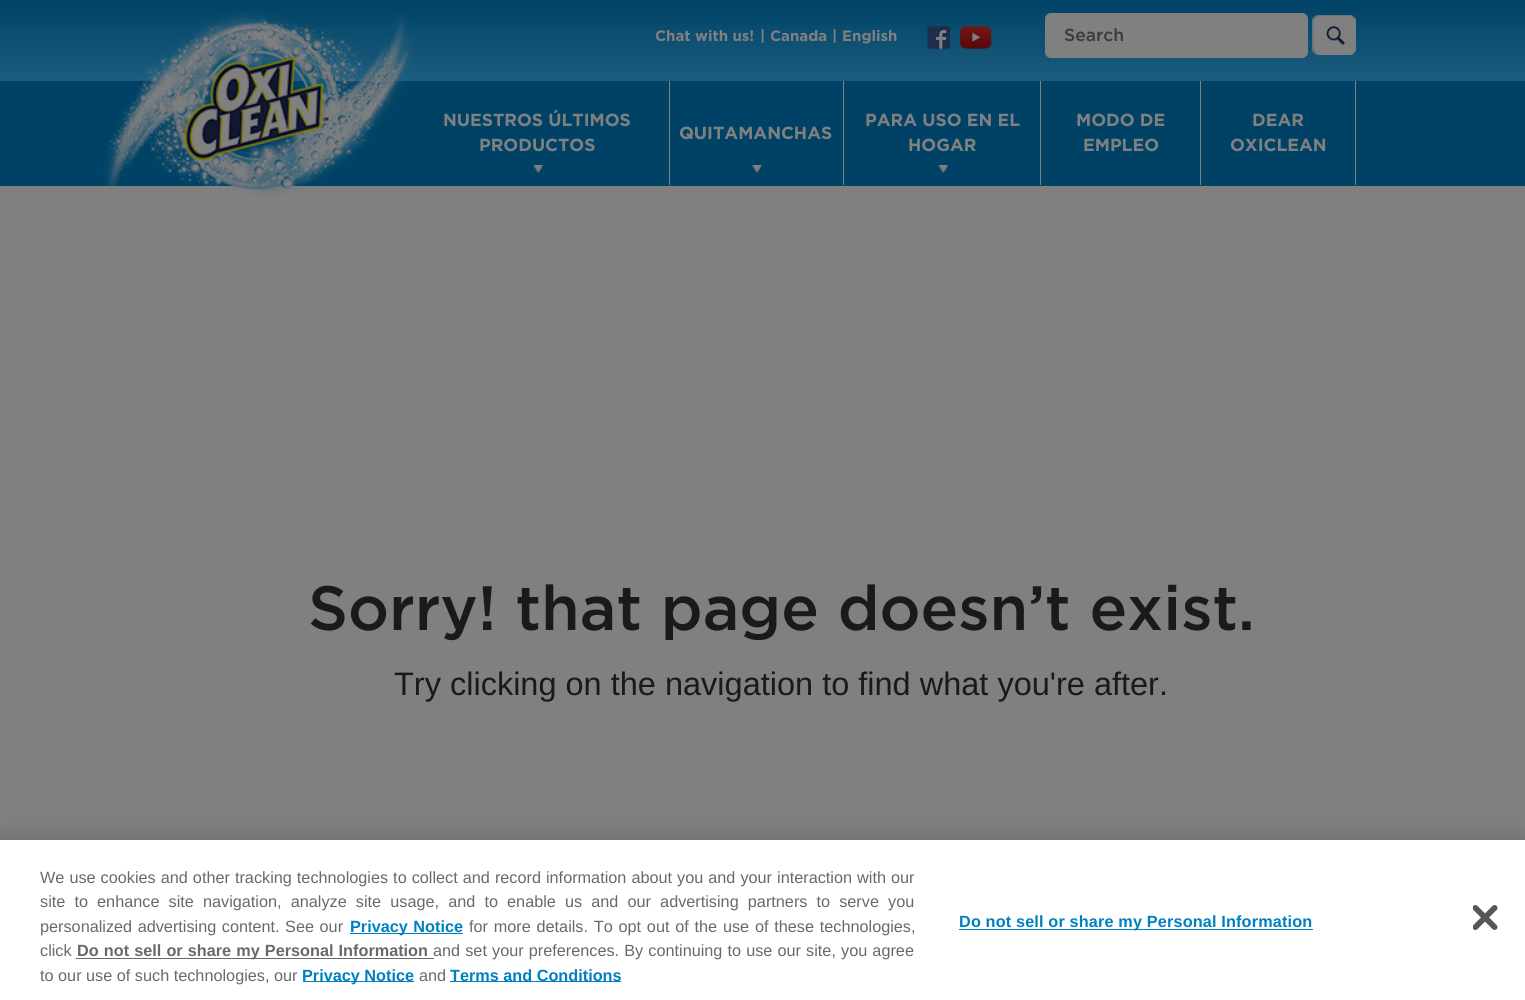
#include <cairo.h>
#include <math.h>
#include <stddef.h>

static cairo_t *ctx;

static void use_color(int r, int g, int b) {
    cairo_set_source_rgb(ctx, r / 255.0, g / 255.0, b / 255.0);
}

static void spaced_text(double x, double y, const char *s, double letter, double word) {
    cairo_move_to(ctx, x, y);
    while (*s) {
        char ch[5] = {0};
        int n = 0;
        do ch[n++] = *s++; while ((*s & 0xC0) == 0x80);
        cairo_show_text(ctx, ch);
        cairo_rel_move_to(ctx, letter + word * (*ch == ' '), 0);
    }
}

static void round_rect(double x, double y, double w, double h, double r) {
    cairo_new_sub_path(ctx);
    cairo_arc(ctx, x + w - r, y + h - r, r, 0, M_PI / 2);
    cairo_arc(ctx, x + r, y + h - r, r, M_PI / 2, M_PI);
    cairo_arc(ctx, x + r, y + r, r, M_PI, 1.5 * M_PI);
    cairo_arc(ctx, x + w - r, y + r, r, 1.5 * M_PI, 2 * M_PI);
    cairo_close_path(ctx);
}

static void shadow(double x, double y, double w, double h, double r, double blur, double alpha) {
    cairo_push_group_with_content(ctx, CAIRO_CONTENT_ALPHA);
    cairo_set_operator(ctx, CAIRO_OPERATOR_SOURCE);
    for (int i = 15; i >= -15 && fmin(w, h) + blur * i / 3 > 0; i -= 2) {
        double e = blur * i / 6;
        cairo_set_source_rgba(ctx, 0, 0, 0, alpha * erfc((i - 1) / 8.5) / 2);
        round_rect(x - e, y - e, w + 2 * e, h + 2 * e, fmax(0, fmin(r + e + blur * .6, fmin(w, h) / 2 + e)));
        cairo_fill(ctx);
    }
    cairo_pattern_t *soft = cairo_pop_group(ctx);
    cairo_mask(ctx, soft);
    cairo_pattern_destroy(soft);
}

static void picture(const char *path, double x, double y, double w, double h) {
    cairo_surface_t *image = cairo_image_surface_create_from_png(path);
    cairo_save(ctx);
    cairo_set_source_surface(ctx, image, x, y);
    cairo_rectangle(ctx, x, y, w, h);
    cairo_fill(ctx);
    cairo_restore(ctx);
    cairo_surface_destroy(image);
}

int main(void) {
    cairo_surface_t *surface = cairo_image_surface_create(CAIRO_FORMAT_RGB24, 1525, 1000);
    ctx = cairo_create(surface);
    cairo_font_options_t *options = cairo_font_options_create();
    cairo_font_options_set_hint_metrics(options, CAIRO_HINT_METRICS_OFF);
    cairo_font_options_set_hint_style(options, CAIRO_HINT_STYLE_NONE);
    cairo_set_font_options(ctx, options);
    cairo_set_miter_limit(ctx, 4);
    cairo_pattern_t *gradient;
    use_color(128, 128, 128);
    cairo_paint(ctx);
    gradient = cairo_pattern_create_linear(763, 0, 763, 81);
    cairo_pattern_add_color_stop_rgba(gradient, 0, 0, 0.259, 0.396, 1);
    cairo_pattern_add_color_stop_rgba(gradient, 1, 0.11, 0.365, 0.498, 1);
    cairo_set_source(ctx, gradient);
    cairo_pattern_destroy(gradient);
    cairo_rectangle(ctx, 0, 0, 1525, 81);
    cairo_fill(ctx);
    cairo_select_font_face(ctx, "Gotham", CAIRO_FONT_SLANT_NORMAL, CAIRO_FONT_WEIGHT_BOLD);
    cairo_set_font_size(ctx, 15);
    use_color(128, 128, 128);
    cairo_move_to(ctx, 655, 41);
    cairo_show_text(ctx, "Chat with us!");
    cairo_move_to(ctx, 760, 41);
    cairo_show_text(ctx, "|");
    cairo_move_to(ctx, 770, 41);
    cairo_show_text(ctx, "Canada");
    cairo_move_to(ctx, 832, 41);
    cairo_show_text(ctx, "|");
    cairo_move_to(ctx, 842, 41);
    cairo_show_text(ctx, "English");
    picture("img1.png", 927, 26, 23, 23);
    picture("img2.png", 960, 26, 32, 23);
    round_rect(1045, 13, 263, 45, 6);
    cairo_fill(ctx);
    cairo_select_font_face(ctx, "Gotham Medium", CAIRO_FONT_SLANT_NORMAL, CAIRO_FONT_WEIGHT_NORMAL);
    cairo_set_font_size(ctx, 17.5);
    use_color(59, 59, 59);
    cairo_move_to(ctx, 1064, 41);
    cairo_show_text(ctx, "Search");
    use_color(128, 128, 128);
    cairo_new_path(ctx);
    cairo_move_to(ctx, 1319, 16);
    cairo_line_to(ctx, 1350, 16);
    cairo_curve_to(ctx, 1353, 16, 1356, 18, 1356, 21);
    cairo_line_to(ctx, 1356, 49);
    cairo_curve_to(ctx, 1356, 52, 1353, 55, 1350, 55);
    cairo_line_to(ctx, 1319, 55);
    cairo_curve_to(ctx, 1316, 55, 1314, 52, 1314, 49);
    cairo_line_to(ctx, 1314, 21);
    cairo_curve_to(ctx, 1314, 18, 1316, 16, 1319, 16);
    cairo_close_path(ctx);
    cairo_fill(ctx);
    picture("img3.png", 1326, 26, 19, 19);
    use_color(107, 118, 124);
    cairo_set_fill_rule(ctx, CAIRO_FILL_RULE_EVEN_ODD);
    cairo_new_path(ctx);
    cairo_move_to(ctx, 1319, 15);
    cairo_line_to(ctx, 1350, 15);
    cairo_curve_to(ctx, 1353, 15, 1356, 18, 1356, 21);
    cairo_line_to(ctx, 1356, 49);
    cairo_curve_to(ctx, 1356, 52, 1353, 55, 1350, 55);
    cairo_line_to(ctx, 1319, 55);
    cairo_curve_to(ctx, 1315, 55, 1312, 52, 1312, 49);
    cairo_line_to(ctx, 1312, 21);
    cairo_curve_to(ctx, 1312, 18, 1315, 15, 1319, 15);
    cairo_close_path(ctx);
    cairo_move_to(ctx, 1319, 16);
    cairo_line_to(ctx, 1350, 16);
    cairo_curve_to(ctx, 1353, 16, 1356, 18, 1356, 21);
    cairo_line_to(ctx, 1356, 49);
    cairo_curve_to(ctx, 1356, 52, 1353, 55, 1350, 55);
    cairo_line_to(ctx, 1319, 55);
    cairo_curve_to(ctx, 1316, 55, 1314, 52, 1314, 49);
    cairo_line_to(ctx, 1314, 21);
    cairo_curve_to(ctx, 1314, 18, 1316, 16, 1319, 16);
    cairo_close_path(ctx);
    cairo_fill(ctx);
    use_color(0, 66, 101);
    cairo_rectangle(ctx, 0, 81, 1525, 105);
    cairo_fill(ctx);
    picture("img4.png", 102, 12, 314, 185);
    picture("img5.png", 532, 165, 11, 8);
    use_color(128, 128, 128);
    cairo_rectangle(ctx, 669, 81, 1, 104);
    cairo_fill(ctx);
    cairo_select_font_face(ctx, "Gotham", CAIRO_FONT_SLANT_NORMAL, CAIRO_FONT_WEIGHT_BOLD);
    cairo_move_to(ctx, 443, 126);
    cairo_show_text(ctx, "NUESTROS ÚLTIMOS");
    cairo_move_to(ctx, 479, 151);
    cairo_show_text(ctx, "PRODUCTOS");
    picture("img6.png", 751, 165, 11, 8);
    cairo_rectangle(ctx, 843, 81, 1, 104);
    cairo_fill(ctx);
    cairo_move_to(ctx, 679, 139);
    cairo_show_text(ctx, "QUITAMANCHAS");
    picture("img5.png", 937, 165, 11, 8);
    cairo_rectangle(ctx, 1040, 81, 1, 104);
    cairo_fill(ctx);
    cairo_move_to(ctx, 865, 126);
    cairo_show_text(ctx, "PARA USO EN EL");
    cairo_move_to(ctx, 908, 151);
    cairo_show_text(ctx, "HOGAR");
    cairo_rectangle(ctx, 1200, 81, 1, 104);
    cairo_fill(ctx);
    cairo_move_to(ctx, 1076, 126);
    cairo_show_text(ctx, "MODO DE");
    cairo_move_to(ctx, 1083, 151);
    cairo_show_text(ctx, "EMPLEO");
    cairo_rectangle(ctx, 1355, 81, 1, 104);
    cairo_fill(ctx);
    cairo_move_to(ctx, 1252, 126);
    cairo_show_text(ctx, "DEAR");
    cairo_move_to(ctx, 1230, 151);
    cairo_show_text(ctx, "OXICLEAN");
    cairo_select_font_face(ctx, "Gotham Medium", CAIRO_FONT_SLANT_NORMAL, CAIRO_FONT_WEIGHT_NORMAL);
    cairo_set_font_size(ctx, 62.5);
    use_color(26, 26, 26);
    cairo_move_to(ctx, 308, 630);
    cairo_show_text(ctx, "Sorry! that page doesn’t exist.");
    cairo_select_font_face(ctx, "Liberation Sans", CAIRO_FONT_SLANT_NORMAL, CAIRO_FONT_WEIGHT_NORMAL);
    cairo_set_font_size(ctx, 32.5);
    cairo_move_to(ctx, 394, 695);
    cairo_show_text(ctx, "Try clicking on the navigation to find what you're after.");
    use_color(0, 0, 0);
    shadow(0, 840, 1525, 160, 0, 11, 0.2);
    use_color(255, 255, 255);
    cairo_rectangle(ctx, 0, 840, 1525, 160);
    cairo_fill(ctx);
    cairo_set_font_size(ctx, 16.25);
    use_color(105, 105, 105);
    spaced_text(40, 883, "We use cookies and other tracking technologies to collect and record information about you and your interaction with our", 0, 0.5);
    spaced_text(40, 907, "site to enhance site navigation, analyze site usage, and to enable us and our advertising partners to serve you", 0, 4.6);
    spaced_text(40, 932, "personalized advertising content. See our", 0, 1);
    use_color(0, 128, 192);
    cairo_rectangle(ctx, 350, 933, 113, 1);
    cairo_fill(ctx);
    cairo_select_font_face(ctx, "Liberation Sans", CAIRO_FONT_SLANT_NORMAL, CAIRO_FONT_WEIGHT_BOLD);
    spaced_text(350, 932, "Privacy Notice", 0, 1);
    cairo_select_font_face(ctx, "Liberation Sans", CAIRO_FONT_SLANT_NORMAL, CAIRO_FONT_WEIGHT_NORMAL);
    use_color(105, 105, 105);
    spaced_text(469, 932, "for more details. To opt out of the use of these technologies,", 0, 1.25);
    cairo_move_to(ctx, 40, 956);
    cairo_show_text(ctx, "click");
    cairo_rectangle(ctx, 76, 958, 358, 1);
    cairo_fill(ctx);
    cairo_select_font_face(ctx, "Liberation Sans", CAIRO_FONT_SLANT_NORMAL, CAIRO_FONT_WEIGHT_BOLD);
    spaced_text(77, 956, "Do not sell or share my Personal Information", 0, 0.6);
    cairo_select_font_face(ctx, "Liberation Sans", CAIRO_FONT_SLANT_NORMAL, CAIRO_FONT_WEIGHT_NORMAL);
    spaced_text(433, 956, "and set your preferences. By continuing to use our site, you agree", 0, 0.6);
    cairo_move_to(ctx, 40, 981);
    cairo_show_text(ctx, "to our use of such technologies, our");
    use_color(0, 128, 192);
    cairo_rectangle(ctx, 303, 981, 111, 1);
    cairo_fill(ctx);
    cairo_select_font_face(ctx, "Liberation Sans", CAIRO_FONT_SLANT_NORMAL, CAIRO_FONT_WEIGHT_BOLD);
    cairo_move_to(ctx, 302, 981);
    cairo_show_text(ctx, "Privacy Notice");
    cairo_select_font_face(ctx, "Liberation Sans", CAIRO_FONT_SLANT_NORMAL, CAIRO_FONT_WEIGHT_NORMAL);
    use_color(105, 105, 105);
    cairo_move_to(ctx, 419, 981);
    cairo_show_text(ctx, "and");
    use_color(0, 128, 192);
    cairo_rectangle(ctx, 450, 981, 171, 1);
    cairo_fill(ctx);
    cairo_select_font_face(ctx, "Liberation Sans", CAIRO_FONT_SLANT_NORMAL, CAIRO_FONT_WEIGHT_BOLD);
    cairo_move_to(ctx, 450, 981);
    cairo_show_text(ctx, "Terms and Conditions");
    cairo_rectangle(ctx, 959, 929, 354, 1);
    cairo_fill(ctx);
    spaced_text(959, 927, "Do not sell or share my Personal Information", 0.15, 0);
    picture("img7.png", 1473, 905, 25, 25);
    cairo_surface_write_to_png(surface, "result.png");
    cairo_font_options_destroy(options);
    cairo_destroy(ctx);
    cairo_surface_destroy(surface);
    return 0;
}
